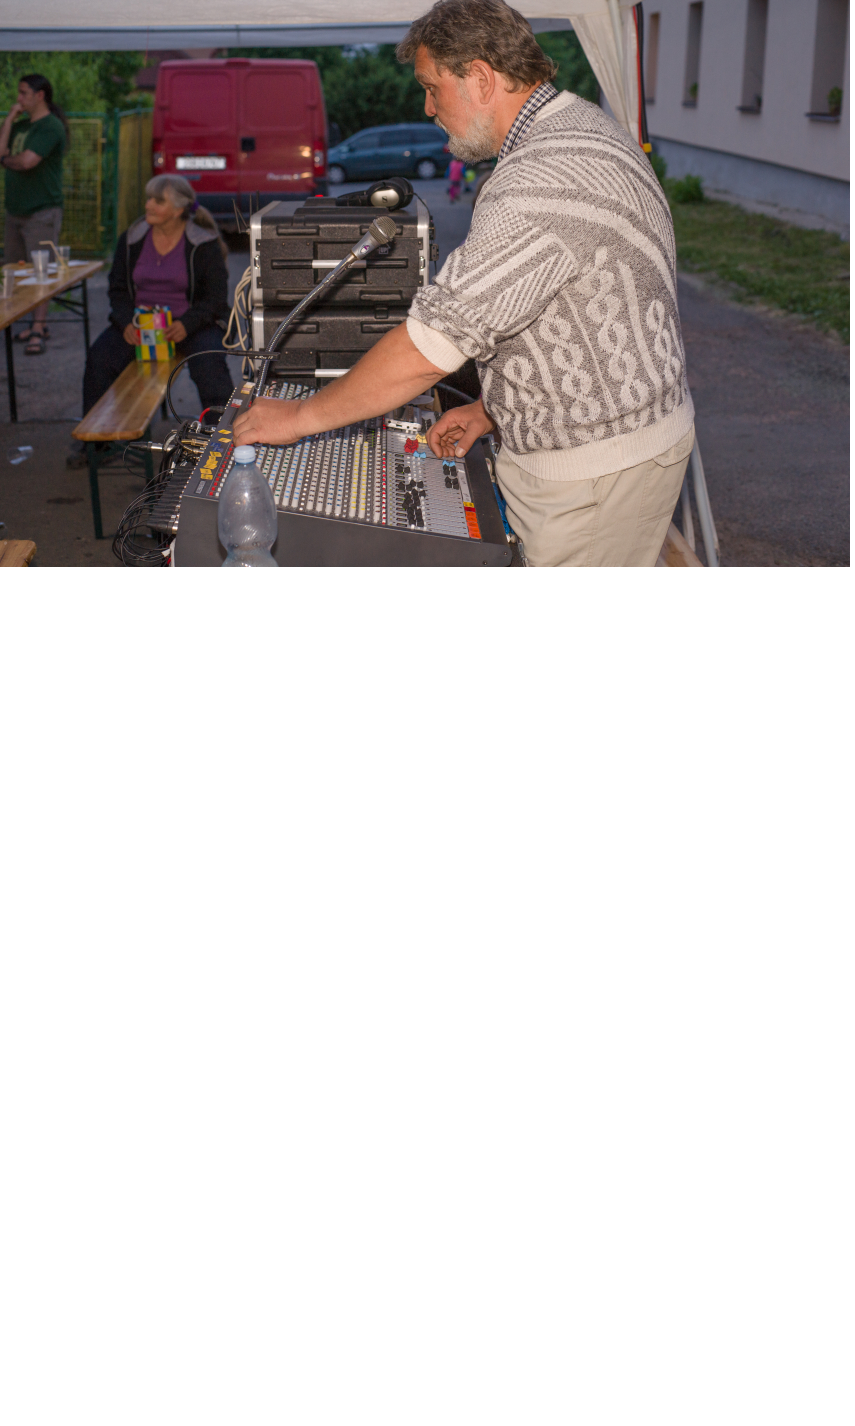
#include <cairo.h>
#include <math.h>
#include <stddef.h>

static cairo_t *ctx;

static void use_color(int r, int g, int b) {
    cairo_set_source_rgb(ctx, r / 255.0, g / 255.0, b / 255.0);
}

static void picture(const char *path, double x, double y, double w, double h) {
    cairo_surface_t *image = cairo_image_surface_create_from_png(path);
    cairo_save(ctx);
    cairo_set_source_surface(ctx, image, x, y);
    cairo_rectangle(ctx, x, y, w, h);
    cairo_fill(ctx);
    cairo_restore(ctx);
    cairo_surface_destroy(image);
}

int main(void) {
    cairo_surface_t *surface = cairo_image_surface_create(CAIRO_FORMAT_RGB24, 855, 1426);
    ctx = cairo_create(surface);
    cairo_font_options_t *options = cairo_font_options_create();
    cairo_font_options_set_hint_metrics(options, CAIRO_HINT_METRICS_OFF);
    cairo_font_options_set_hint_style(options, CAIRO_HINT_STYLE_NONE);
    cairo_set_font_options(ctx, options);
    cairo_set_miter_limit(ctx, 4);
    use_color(255, 255, 255);
    cairo_paint(ctx);
    picture("img1.png", 0, 0, 850, 567);
    cairo_surface_write_to_png(surface, "result.png");
    cairo_font_options_destroy(options);
    cairo_destroy(ctx);
    cairo_surface_destroy(surface);
    return 0;
}
